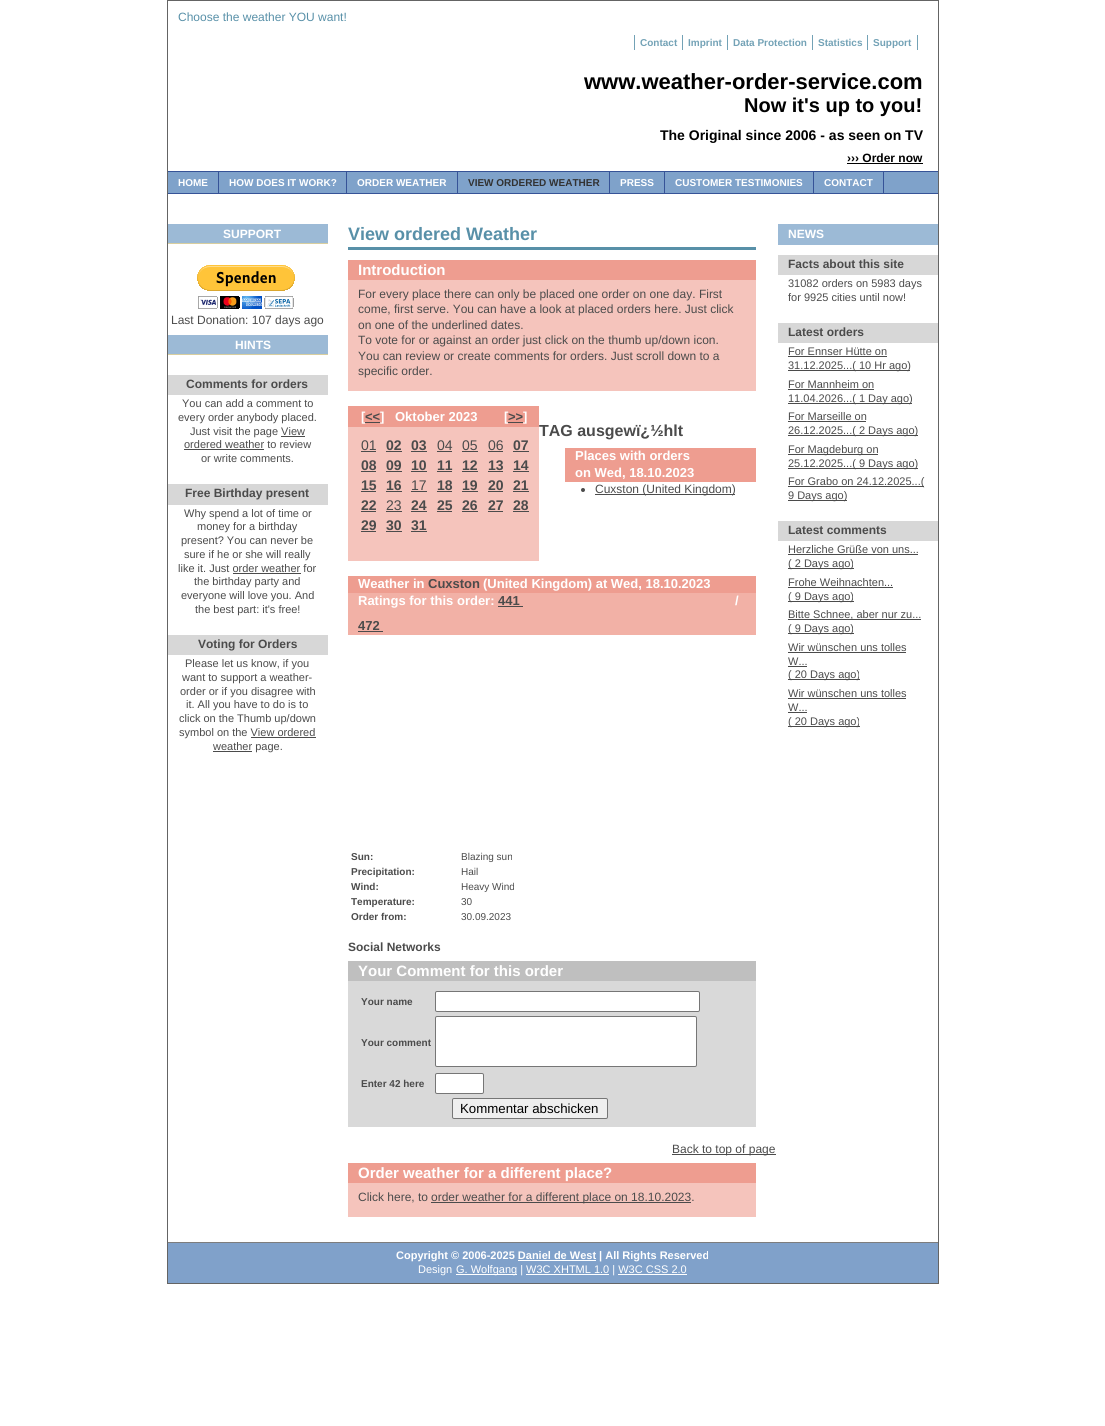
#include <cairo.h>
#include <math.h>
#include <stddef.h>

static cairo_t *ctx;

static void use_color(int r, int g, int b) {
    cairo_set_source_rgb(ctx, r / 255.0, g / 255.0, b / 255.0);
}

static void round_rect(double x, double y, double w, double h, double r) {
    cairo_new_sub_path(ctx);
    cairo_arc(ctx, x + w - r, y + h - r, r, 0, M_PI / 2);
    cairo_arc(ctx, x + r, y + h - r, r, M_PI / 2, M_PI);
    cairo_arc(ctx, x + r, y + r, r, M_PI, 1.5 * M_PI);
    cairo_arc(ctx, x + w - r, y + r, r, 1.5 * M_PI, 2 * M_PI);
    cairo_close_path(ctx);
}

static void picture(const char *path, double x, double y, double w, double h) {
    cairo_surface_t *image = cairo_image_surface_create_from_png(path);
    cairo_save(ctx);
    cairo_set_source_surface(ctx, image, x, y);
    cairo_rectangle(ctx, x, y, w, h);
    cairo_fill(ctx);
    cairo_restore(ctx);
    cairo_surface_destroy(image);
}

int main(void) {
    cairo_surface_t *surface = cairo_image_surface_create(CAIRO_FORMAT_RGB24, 1105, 1426);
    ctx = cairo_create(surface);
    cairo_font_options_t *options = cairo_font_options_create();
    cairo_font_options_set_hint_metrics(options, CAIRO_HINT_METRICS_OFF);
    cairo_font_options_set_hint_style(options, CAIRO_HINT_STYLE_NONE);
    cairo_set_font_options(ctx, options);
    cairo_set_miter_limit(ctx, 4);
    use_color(255, 255, 255);
    cairo_paint(ctx);
    cairo_rectangle(ctx, 167.5, 0.5, 771, 1283);
    use_color(100, 100, 100);
    cairo_set_line_width(ctx, 1);
    cairo_stroke(ctx);
    cairo_select_font_face(ctx, "Liberation Sans", CAIRO_FONT_SLANT_NORMAL, CAIRO_FONT_WEIGHT_NORMAL);
    cairo_set_font_size(ctx, 12);
    use_color(88, 144, 168);
    cairo_move_to(ctx, 178, 21);
    cairo_show_text(ctx, "Choose the weather YOU want!");
    use_color(115, 162, 182);
    cairo_rectangle(ctx, 634, 35, 1, 15);
    cairo_fill(ctx);
    cairo_rectangle(ctx, 682, 35, 1, 15);
    cairo_fill(ctx);
    cairo_select_font_face(ctx, "Liberation Sans", CAIRO_FONT_SLANT_NORMAL, CAIRO_FONT_WEIGHT_BOLD);
    cairo_set_font_size(ctx, 10);
    cairo_move_to(ctx, 640, 46);
    cairo_show_text(ctx, "Contact");
    cairo_rectangle(ctx, 727, 35, 1, 15);
    cairo_fill(ctx);
    cairo_move_to(ctx, 688, 46);
    cairo_show_text(ctx, "Imprint");
    cairo_rectangle(ctx, 812, 35, 1, 15);
    cairo_fill(ctx);
    cairo_move_to(ctx, 733, 46);
    cairo_show_text(ctx, "Data Protection");
    cairo_rectangle(ctx, 867, 35, 1, 15);
    cairo_fill(ctx);
    cairo_move_to(ctx, 818, 46);
    cairo_show_text(ctx, "Statistics");
    cairo_rectangle(ctx, 917, 35, 1, 15);
    cairo_fill(ctx);
    cairo_move_to(ctx, 873, 46);
    cairo_show_text(ctx, "Support");
    cairo_set_font_size(ctx, 22);
    use_color(0, 0, 0);
    cairo_move_to(ctx, 584, 89);
    cairo_show_text(ctx, "www.weather-order-service.com");
    cairo_set_font_size(ctx, 20);
    cairo_move_to(ctx, 744, 112);
    cairo_show_text(ctx, "Now it's up to you!");
    cairo_set_font_size(ctx, 14);
    cairo_move_to(ctx, 660, 140);
    cairo_show_text(ctx, "The Original since 2006 - as seen on TV");
    cairo_set_font_size(ctx, 12);
    cairo_move_to(ctx, 847, 162);
    cairo_show_text(ctx, "››› Order now");
    cairo_rectangle(ctx, 847, 163, 76, 1);
    cairo_fill(ctx);
    use_color(127, 162, 202);
    cairo_rectangle(ctx, 168, 172, 770, 21);
    cairo_fill(ctx);
    use_color(54, 83, 151);
    cairo_rectangle(ctx, 168, 171, 770, 1);
    cairo_fill(ctx);
    cairo_rectangle(ctx, 168, 193, 770, 1);
    cairo_fill(ctx);
    cairo_rectangle(ctx, 218, 172, 1, 21);
    cairo_fill(ctx);
    cairo_set_font_size(ctx, 10);
    use_color(255, 255, 255);
    cairo_move_to(ctx, 178, 186);
    cairo_show_text(ctx, "HOME");
    use_color(54, 83, 151);
    cairo_rectangle(ctx, 346, 172, 1, 21);
    cairo_fill(ctx);
    use_color(255, 255, 255);
    cairo_move_to(ctx, 229, 186);
    cairo_show_text(ctx, "HOW DOES IT WORK?");
    use_color(54, 83, 151);
    cairo_rectangle(ctx, 457, 172, 1, 21);
    cairo_fill(ctx);
    use_color(255, 255, 255);
    cairo_move_to(ctx, 357, 186);
    cairo_show_text(ctx, "ORDER WEATHER");
    use_color(54, 83, 151);
    cairo_rectangle(ctx, 609, 172, 1, 21);
    cairo_fill(ctx);
    use_color(50, 50, 50);
    cairo_move_to(ctx, 468, 186);
    cairo_show_text(ctx, "VIEW ORDERED WEATHER");
    use_color(54, 83, 151);
    cairo_rectangle(ctx, 664, 172, 1, 21);
    cairo_fill(ctx);
    use_color(255, 255, 255);
    cairo_move_to(ctx, 620, 186);
    cairo_show_text(ctx, "PRESS");
    use_color(54, 83, 151);
    cairo_rectangle(ctx, 813, 172, 1, 21);
    cairo_fill(ctx);
    use_color(255, 255, 255);
    cairo_move_to(ctx, 675, 186);
    cairo_show_text(ctx, "CUSTOMER TESTIMONIES");
    use_color(54, 83, 151);
    cairo_rectangle(ctx, 883, 172, 1, 21);
    cairo_fill(ctx);
    use_color(255, 255, 255);
    cairo_move_to(ctx, 824, 186);
    cairo_show_text(ctx, "CONTACT");
    use_color(216, 206, 159);
    cairo_rectangle(ctx, 168, 243, 160, 1);
    cairo_fill(ctx);
    use_color(156, 186, 214);
    cairo_rectangle(ctx, 168, 224, 160, 19);
    cairo_fill(ctx);
    cairo_set_font_size(ctx, 12);
    use_color(255, 255, 255);
    cairo_move_to(ctx, 223, 238);
    cairo_show_text(ctx, "SUPPORT");
    picture("img1.png", 197, 265, 98, 44);
    cairo_select_font_face(ctx, "Liberation Sans", CAIRO_FONT_SLANT_NORMAL, CAIRO_FONT_WEIGHT_NORMAL);
    use_color(75, 75, 75);
    cairo_move_to(ctx, 171, 324);
    cairo_show_text(ctx, "Last Donation: 107 days ago");
    use_color(216, 206, 159);
    cairo_rectangle(ctx, 168, 354, 160, 1);
    cairo_fill(ctx);
    use_color(156, 186, 214);
    cairo_rectangle(ctx, 168, 335, 160, 19);
    cairo_fill(ctx);
    cairo_select_font_face(ctx, "Liberation Sans", CAIRO_FONT_SLANT_NORMAL, CAIRO_FONT_WEIGHT_BOLD);
    use_color(255, 255, 255);
    cairo_move_to(ctx, 235, 349);
    cairo_show_text(ctx, "HINTS");
    use_color(215, 215, 215);
    cairo_rectangle(ctx, 168, 375, 160, 20);
    cairo_fill(ctx);
    use_color(75, 75, 75);
    cairo_move_to(ctx, 186, 388);
    cairo_show_text(ctx, "Comments for orders");
    cairo_select_font_face(ctx, "Liberation Sans", CAIRO_FONT_SLANT_NORMAL, CAIRO_FONT_WEIGHT_NORMAL);
    cairo_set_font_size(ctx, 11);
    cairo_move_to(ctx, 182, 407);
    cairo_show_text(ctx, "You can add a comment to");
    cairo_move_to(ctx, 178, 421);
    cairo_show_text(ctx, "every order anybody placed.");
    cairo_move_to(ctx, 190, 435);
    cairo_show_text(ctx, "Just visit the page View");
    cairo_move_to(ctx, 184, 448);
    cairo_show_text(ctx, "ordered weather to review");
    cairo_rectangle(ctx, 281, 436, 24, 1);
    cairo_fill(ctx);
    cairo_rectangle(ctx, 184, 449, 80, 1);
    cairo_fill(ctx);
    cairo_move_to(ctx, 201, 462);
    cairo_show_text(ctx, "or write comments.");
    use_color(215, 215, 215);
    cairo_rectangle(ctx, 168, 484, 160, 21);
    cairo_fill(ctx);
    cairo_select_font_face(ctx, "Liberation Sans", CAIRO_FONT_SLANT_NORMAL, CAIRO_FONT_WEIGHT_BOLD);
    cairo_set_font_size(ctx, 12);
    use_color(75, 75, 75);
    cairo_move_to(ctx, 185, 497);
    cairo_show_text(ctx, "Free Birthday present");
    cairo_select_font_face(ctx, "Liberation Sans", CAIRO_FONT_SLANT_NORMAL, CAIRO_FONT_WEIGHT_NORMAL);
    cairo_set_font_size(ctx, 11);
    cairo_move_to(ctx, 184, 517);
    cairo_show_text(ctx, "Why spend a lot of time or");
    cairo_move_to(ctx, 197, 530);
    cairo_show_text(ctx, "money for a birthday");
    cairo_move_to(ctx, 181, 544);
    cairo_show_text(ctx, "present? You can never be");
    cairo_move_to(ctx, 184, 558);
    cairo_show_text(ctx, "sure if he or she will really");
    cairo_move_to(ctx, 178, 572);
    cairo_show_text(ctx, "like it. Just order weather for");
    cairo_rectangle(ctx, 233, 573, 68, 1);
    cairo_fill(ctx);
    cairo_move_to(ctx, 194, 585);
    cairo_show_text(ctx, "the birthday party and");
    cairo_move_to(ctx, 181, 599);
    cairo_show_text(ctx, "everyone will love you. And");
    cairo_move_to(ctx, 195, 613);
    cairo_show_text(ctx, "the best part: it's free!");
    use_color(215, 215, 215);
    cairo_rectangle(ctx, 168, 635, 160, 20);
    cairo_fill(ctx);
    cairo_select_font_face(ctx, "Liberation Sans", CAIRO_FONT_SLANT_NORMAL, CAIRO_FONT_WEIGHT_BOLD);
    cairo_set_font_size(ctx, 12);
    use_color(75, 75, 75);
    cairo_move_to(ctx, 198, 648);
    cairo_show_text(ctx, "Voting for Orders");
    cairo_select_font_face(ctx, "Liberation Sans", CAIRO_FONT_SLANT_NORMAL, CAIRO_FONT_WEIGHT_NORMAL);
    cairo_set_font_size(ctx, 11);
    cairo_move_to(ctx, 185, 667);
    cairo_show_text(ctx, "Please let us know, if you");
    cairo_move_to(ctx, 182, 681);
    cairo_show_text(ctx, "want to support a weather-");
    cairo_move_to(ctx, 180, 695);
    cairo_show_text(ctx, "order or if you disagree with");
    cairo_move_to(ctx, 186, 708);
    cairo_show_text(ctx, "it. All you have to do is to");
    cairo_move_to(ctx, 179, 722);
    cairo_show_text(ctx, "click on the Thumb up/down");
    cairo_move_to(ctx, 179, 736);
    cairo_show_text(ctx, "symbol on the View ordered");
    cairo_rectangle(ctx, 213, 751, 39, 1);
    cairo_fill(ctx);
    cairo_move_to(ctx, 213, 750);
    cairo_show_text(ctx, "weather page.");
    cairo_rectangle(ctx, 251, 737, 65, 1);
    cairo_fill(ctx);
    use_color(88, 144, 168);
    cairo_rectangle(ctx, 348, 247, 408, 3);
    cairo_fill(ctx);
    cairo_select_font_face(ctx, "Liberation Sans", CAIRO_FONT_SLANT_NORMAL, CAIRO_FONT_WEIGHT_BOLD);
    cairo_set_font_size(ctx, 18);
    cairo_move_to(ctx, 348, 240);
    cairo_show_text(ctx, "View ordered Weather");
    use_color(238, 157, 144);
    cairo_rectangle(ctx, 348, 260, 408, 20);
    cairo_fill(ctx);
    cairo_set_font_size(ctx, 15);
    use_color(255, 255, 255);
    cairo_move_to(ctx, 358, 275);
    cairo_show_text(ctx, "Introduction");
    use_color(245, 196, 188);
    cairo_rectangle(ctx, 348, 280, 408, 111);
    cairo_fill(ctx);
    cairo_select_font_face(ctx, "Liberation Sans", CAIRO_FONT_SLANT_NORMAL, CAIRO_FONT_WEIGHT_NORMAL);
    cairo_set_font_size(ctx, 12);
    use_color(75, 75, 75);
    cairo_move_to(ctx, 358, 298);
    cairo_show_text(ctx, "For every place there can only be placed one order on one day. First");
    cairo_move_to(ctx, 358, 313);
    cairo_show_text(ctx, "come, first serve. You can have a look at placed orders here. Just click");
    cairo_move_to(ctx, 358, 329);
    cairo_show_text(ctx, "on one of the underlined dates.");
    cairo_move_to(ctx, 358, 344);
    cairo_show_text(ctx, "To vote for or against an order just click on the thumb up/down icon.");
    cairo_move_to(ctx, 358, 360);
    cairo_show_text(ctx, "You can review or create comments for orders. Just scroll down to a");
    cairo_move_to(ctx, 358, 375);
    cairo_show_text(ctx, "specific order.");
    cairo_select_font_face(ctx, "Liberation Sans", CAIRO_FONT_SLANT_NORMAL, CAIRO_FONT_WEIGHT_BOLD);
    cairo_set_font_size(ctx, 16);
    cairo_move_to(ctx, 539, 436);
    cairo_show_text(ctx, "TAG ausgewï¿½hlt");
    use_color(238, 157, 144);
    cairo_rectangle(ctx, 348, 406, 191, 21);
    cairo_fill(ctx);
    cairo_set_font_size(ctx, 13);
    use_color(255, 255, 255);
    cairo_move_to(ctx, 361, 421);
    cairo_show_text(ctx, "[");
    use_color(75, 75, 75);
    cairo_move_to(ctx, 365, 421);
    cairo_show_text(ctx, "<<");
    cairo_rectangle(ctx, 365, 422, 15, 1);
    cairo_fill(ctx);
    use_color(255, 255, 255);
    cairo_move_to(ctx, 380, 421);
    cairo_show_text(ctx, "]");
    cairo_move_to(ctx, 395, 421);
    cairo_show_text(ctx, "Oktober 2023");
    cairo_move_to(ctx, 504, 421);
    cairo_show_text(ctx, "[");
    use_color(75, 75, 75);
    cairo_move_to(ctx, 508, 421);
    cairo_show_text(ctx, ">>");
    cairo_rectangle(ctx, 508, 422, 15, 1);
    cairo_fill(ctx);
    use_color(255, 255, 255);
    cairo_move_to(ctx, 523, 421);
    cairo_show_text(ctx, "]");
    use_color(245, 196, 188);
    cairo_rectangle(ctx, 348, 427, 191, 134);
    cairo_fill(ctx);
    cairo_select_font_face(ctx, "Liberation Sans", CAIRO_FONT_SLANT_NORMAL, CAIRO_FONT_WEIGHT_NORMAL);
    cairo_set_font_size(ctx, 14);
    use_color(75, 75, 75);
    cairo_move_to(ctx, 361, 450);
    cairo_show_text(ctx, "01");
    cairo_rectangle(ctx, 361, 451, 15, 1);
    cairo_fill(ctx);
    cairo_select_font_face(ctx, "Liberation Sans", CAIRO_FONT_SLANT_NORMAL, CAIRO_FONT_WEIGHT_BOLD);
    cairo_move_to(ctx, 386, 450);
    cairo_show_text(ctx, "02");
    cairo_rectangle(ctx, 386, 451, 16, 1);
    cairo_fill(ctx);
    cairo_move_to(ctx, 411, 450);
    cairo_show_text(ctx, "03");
    cairo_rectangle(ctx, 411, 451, 16, 1);
    cairo_fill(ctx);
    cairo_select_font_face(ctx, "Liberation Sans", CAIRO_FONT_SLANT_NORMAL, CAIRO_FONT_WEIGHT_NORMAL);
    cairo_move_to(ctx, 437, 450);
    cairo_show_text(ctx, "04");
    cairo_rectangle(ctx, 437, 451, 15, 1);
    cairo_fill(ctx);
    cairo_move_to(ctx, 462, 450);
    cairo_show_text(ctx, "05");
    cairo_rectangle(ctx, 462, 451, 16, 1);
    cairo_fill(ctx);
    cairo_move_to(ctx, 488, 450);
    cairo_show_text(ctx, "06");
    cairo_rectangle(ctx, 488, 451, 15, 1);
    cairo_fill(ctx);
    cairo_select_font_face(ctx, "Liberation Sans", CAIRO_FONT_SLANT_NORMAL, CAIRO_FONT_WEIGHT_BOLD);
    cairo_move_to(ctx, 513, 450);
    cairo_show_text(ctx, "07");
    cairo_rectangle(ctx, 513, 451, 16, 1);
    cairo_fill(ctx);
    cairo_move_to(ctx, 361, 470);
    cairo_show_text(ctx, "08");
    cairo_rectangle(ctx, 361, 471, 15, 1);
    cairo_fill(ctx);
    cairo_move_to(ctx, 386, 470);
    cairo_show_text(ctx, "09");
    cairo_rectangle(ctx, 386, 471, 16, 1);
    cairo_fill(ctx);
    cairo_move_to(ctx, 411, 470);
    cairo_show_text(ctx, "10");
    cairo_rectangle(ctx, 411, 471, 16, 1);
    cairo_fill(ctx);
    cairo_move_to(ctx, 437, 470);
    cairo_show_text(ctx, "11");
    cairo_rectangle(ctx, 437, 471, 15, 1);
    cairo_fill(ctx);
    cairo_move_to(ctx, 462, 470);
    cairo_show_text(ctx, "12");
    cairo_rectangle(ctx, 462, 471, 16, 1);
    cairo_fill(ctx);
    cairo_move_to(ctx, 488, 470);
    cairo_show_text(ctx, "13");
    cairo_rectangle(ctx, 488, 471, 15, 1);
    cairo_fill(ctx);
    cairo_move_to(ctx, 513, 470);
    cairo_show_text(ctx, "14");
    cairo_rectangle(ctx, 513, 471, 16, 1);
    cairo_fill(ctx);
    cairo_move_to(ctx, 361, 490);
    cairo_show_text(ctx, "15");
    cairo_rectangle(ctx, 361, 491, 15, 1);
    cairo_fill(ctx);
    cairo_move_to(ctx, 386, 490);
    cairo_show_text(ctx, "16");
    cairo_rectangle(ctx, 386, 491, 16, 1);
    cairo_fill(ctx);
    cairo_select_font_face(ctx, "Liberation Sans", CAIRO_FONT_SLANT_NORMAL, CAIRO_FONT_WEIGHT_NORMAL);
    cairo_move_to(ctx, 411, 490);
    cairo_show_text(ctx, "17");
    cairo_rectangle(ctx, 411, 491, 16, 1);
    cairo_fill(ctx);
    cairo_select_font_face(ctx, "Liberation Sans", CAIRO_FONT_SLANT_NORMAL, CAIRO_FONT_WEIGHT_BOLD);
    cairo_move_to(ctx, 437, 490);
    cairo_show_text(ctx, "18");
    cairo_rectangle(ctx, 437, 491, 15, 1);
    cairo_fill(ctx);
    cairo_move_to(ctx, 462, 490);
    cairo_show_text(ctx, "19");
    cairo_rectangle(ctx, 462, 491, 16, 1);
    cairo_fill(ctx);
    cairo_move_to(ctx, 488, 490);
    cairo_show_text(ctx, "20");
    cairo_rectangle(ctx, 488, 491, 15, 1);
    cairo_fill(ctx);
    cairo_move_to(ctx, 513, 490);
    cairo_show_text(ctx, "21");
    cairo_rectangle(ctx, 513, 491, 16, 1);
    cairo_fill(ctx);
    cairo_move_to(ctx, 361, 510);
    cairo_show_text(ctx, "22");
    cairo_rectangle(ctx, 361, 511, 15, 1);
    cairo_fill(ctx);
    cairo_select_font_face(ctx, "Liberation Sans", CAIRO_FONT_SLANT_NORMAL, CAIRO_FONT_WEIGHT_NORMAL);
    cairo_move_to(ctx, 386, 510);
    cairo_show_text(ctx, "23");
    cairo_rectangle(ctx, 386, 511, 16, 1);
    cairo_fill(ctx);
    cairo_select_font_face(ctx, "Liberation Sans", CAIRO_FONT_SLANT_NORMAL, CAIRO_FONT_WEIGHT_BOLD);
    cairo_move_to(ctx, 411, 510);
    cairo_show_text(ctx, "24");
    cairo_rectangle(ctx, 411, 511, 16, 1);
    cairo_fill(ctx);
    cairo_move_to(ctx, 437, 510);
    cairo_show_text(ctx, "25");
    cairo_rectangle(ctx, 437, 511, 15, 1);
    cairo_fill(ctx);
    cairo_move_to(ctx, 462, 510);
    cairo_show_text(ctx, "26");
    cairo_rectangle(ctx, 462, 511, 16, 1);
    cairo_fill(ctx);
    cairo_move_to(ctx, 488, 510);
    cairo_show_text(ctx, "27");
    cairo_rectangle(ctx, 488, 511, 15, 1);
    cairo_fill(ctx);
    cairo_move_to(ctx, 513, 510);
    cairo_show_text(ctx, "28");
    cairo_rectangle(ctx, 513, 511, 16, 1);
    cairo_fill(ctx);
    cairo_move_to(ctx, 361, 530);
    cairo_show_text(ctx, "29");
    cairo_rectangle(ctx, 361, 531, 15, 1);
    cairo_fill(ctx);
    cairo_move_to(ctx, 386, 530);
    cairo_show_text(ctx, "30");
    cairo_rectangle(ctx, 386, 531, 16, 1);
    cairo_fill(ctx);
    cairo_move_to(ctx, 411, 530);
    cairo_show_text(ctx, "31");
    cairo_rectangle(ctx, 411, 531, 16, 1);
    cairo_fill(ctx);
    use_color(238, 157, 144);
    cairo_rectangle(ctx, 565, 448, 191, 34);
    cairo_fill(ctx);
    cairo_set_font_size(ctx, 13);
    use_color(255, 255, 255);
    cairo_move_to(ctx, 575, 460);
    cairo_show_text(ctx, "Places with orders");
    cairo_move_to(ctx, 575, 477);
    cairo_show_text(ctx, "on Wed, 18.10.2023");
    use_color(75, 75, 75);
    cairo_new_path(ctx);
    cairo_arc(ctx, 583, 490, 2, 0, 2 * M_PI);
    cairo_fill(ctx);
    cairo_rectangle(ctx, 595, 494, 140, 1);
    cairo_fill(ctx);
    cairo_select_font_face(ctx, "Liberation Sans", CAIRO_FONT_SLANT_NORMAL, CAIRO_FONT_WEIGHT_NORMAL);
    cairo_set_font_size(ctx, 12);
    cairo_move_to(ctx, 595, 493);
    cairo_show_text(ctx, "Cuxston (United Kingdom)");
    use_color(238, 157, 144);
    cairo_rectangle(ctx, 348, 576, 408, 17);
    cairo_fill(ctx);
    cairo_select_font_face(ctx, "Liberation Sans", CAIRO_FONT_SLANT_NORMAL, CAIRO_FONT_WEIGHT_BOLD);
    cairo_set_font_size(ctx, 13);
    use_color(255, 255, 255);
    cairo_move_to(ctx, 358, 588);
    cairo_show_text(ctx, "Weather in");
    use_color(75, 75, 75);
    cairo_move_to(ctx, 428, 588);
    cairo_show_text(ctx, "Cuxston");
    use_color(255, 255, 255);
    cairo_move_to(ctx, 483, 588);
    cairo_show_text(ctx, "(United Kingdom) at Wed, 18.10.2023");
    use_color(242, 177, 166);
    cairo_rectangle(ctx, 348, 593, 408, 42);
    cairo_fill(ctx);
    use_color(255, 255, 255);
    cairo_move_to(ctx, 358, 605);
    cairo_show_text(ctx, "Ratings for this order:");
    use_color(75, 75, 75);
    cairo_move_to(ctx, 498, 605);
    cairo_show_text(ctx, "441");
    cairo_rectangle(ctx, 498, 606, 25, 1);
    cairo_fill(ctx);
    use_color(255, 255, 255);
    cairo_move_to(ctx, 735, 605);
    cairo_show_text(ctx, "/");
    use_color(75, 75, 75);
    cairo_move_to(ctx, 358, 630);
    cairo_show_text(ctx, "472");
    cairo_rectangle(ctx, 358, 631, 25, 1);
    cairo_fill(ctx);
    cairo_set_font_size(ctx, 10);
    cairo_move_to(ctx, 351, 860);
    cairo_show_text(ctx, "Sun:");
    cairo_select_font_face(ctx, "Liberation Sans", CAIRO_FONT_SLANT_NORMAL, CAIRO_FONT_WEIGHT_NORMAL);
    cairo_move_to(ctx, 461, 860);
    cairo_show_text(ctx, "Blazing sun");
    cairo_select_font_face(ctx, "Liberation Sans", CAIRO_FONT_SLANT_NORMAL, CAIRO_FONT_WEIGHT_BOLD);
    cairo_move_to(ctx, 351, 875);
    cairo_show_text(ctx, "Precipitation:");
    cairo_select_font_face(ctx, "Liberation Sans", CAIRO_FONT_SLANT_NORMAL, CAIRO_FONT_WEIGHT_NORMAL);
    cairo_move_to(ctx, 461, 875);
    cairo_show_text(ctx, "Hail");
    cairo_select_font_face(ctx, "Liberation Sans", CAIRO_FONT_SLANT_NORMAL, CAIRO_FONT_WEIGHT_BOLD);
    cairo_move_to(ctx, 351, 890);
    cairo_show_text(ctx, "Wind:");
    cairo_select_font_face(ctx, "Liberation Sans", CAIRO_FONT_SLANT_NORMAL, CAIRO_FONT_WEIGHT_NORMAL);
    cairo_move_to(ctx, 461, 890);
    cairo_show_text(ctx, "Heavy Wind");
    cairo_select_font_face(ctx, "Liberation Sans", CAIRO_FONT_SLANT_NORMAL, CAIRO_FONT_WEIGHT_BOLD);
    cairo_move_to(ctx, 351, 905);
    cairo_show_text(ctx, "Temperature:");
    cairo_select_font_face(ctx, "Liberation Sans", CAIRO_FONT_SLANT_NORMAL, CAIRO_FONT_WEIGHT_NORMAL);
    cairo_move_to(ctx, 461, 905);
    cairo_show_text(ctx, "30");
    cairo_select_font_face(ctx, "Liberation Sans", CAIRO_FONT_SLANT_NORMAL, CAIRO_FONT_WEIGHT_BOLD);
    cairo_move_to(ctx, 351, 920);
    cairo_show_text(ctx, "Order from:");
    cairo_select_font_face(ctx, "Liberation Sans", CAIRO_FONT_SLANT_NORMAL, CAIRO_FONT_WEIGHT_NORMAL);
    cairo_move_to(ctx, 461, 920);
    cairo_show_text(ctx, "30.09.2023");
    cairo_select_font_face(ctx, "Liberation Sans", CAIRO_FONT_SLANT_NORMAL, CAIRO_FONT_WEIGHT_BOLD);
    cairo_set_font_size(ctx, 12);
    cairo_move_to(ctx, 348, 951);
    cairo_show_text(ctx, "Social Networks");
    use_color(191, 191, 191);
    cairo_rectangle(ctx, 348, 961, 408, 20);
    cairo_fill(ctx);
    cairo_set_font_size(ctx, 15);
    use_color(255, 255, 255);
    cairo_move_to(ctx, 358, 976);
    cairo_show_text(ctx, "Your Comment for this order");
    use_color(217, 217, 217);
    cairo_rectangle(ctx, 348, 981, 408, 146);
    cairo_fill(ctx);
    cairo_set_font_size(ctx, 10);
    use_color(75, 75, 75);
    cairo_move_to(ctx, 361, 1005);
    cairo_show_text(ctx, "Your name");
    use_color(255, 255, 255);
    round_rect(435.5, 991.5, 264, 20, 1.5);
    cairo_fill_preserve(ctx);
    use_color(118, 118, 118);
    cairo_stroke(ctx);
    use_color(75, 75, 75);
    cairo_move_to(ctx, 361, 1046);
    cairo_show_text(ctx, "Your comment");
    use_color(255, 255, 255);
    round_rect(435.5, 1016.5, 261, 50, 1.5);
    cairo_fill_preserve(ctx);
    use_color(118, 118, 118);
    cairo_stroke(ctx);
    use_color(75, 75, 75);
    cairo_move_to(ctx, 361, 1087);
    cairo_show_text(ctx, "Enter 42 here");
    use_color(255, 255, 255);
    round_rect(435.5, 1073.5, 48, 20, 1.5);
    cairo_fill_preserve(ctx);
    use_color(118, 118, 118);
    cairo_stroke(ctx);
    use_color(239, 239, 239);
    round_rect(452.5, 1098.5, 155, 20, 1.5);
    cairo_fill_preserve(ctx);
    use_color(118, 118, 118);
    cairo_stroke(ctx);
    cairo_select_font_face(ctx, "Liberation Sans", CAIRO_FONT_SLANT_NORMAL, CAIRO_FONT_WEIGHT_NORMAL);
    cairo_set_font_size(ctx, 13.25);
    use_color(0, 0, 0);
    cairo_move_to(ctx, 460, 1113);
    cairo_show_text(ctx, "Kommentar abschicken");
    use_color(75, 75, 75);
    cairo_rectangle(ctx, 672, 1154, 104, 1);
    cairo_fill(ctx);
    cairo_set_font_size(ctx, 12);
    cairo_move_to(ctx, 672, 1153);
    cairo_show_text(ctx, "Back to top of page");
    use_color(238, 157, 144);
    cairo_rectangle(ctx, 348, 1163, 408, 20);
    cairo_fill(ctx);
    cairo_select_font_face(ctx, "Liberation Sans", CAIRO_FONT_SLANT_NORMAL, CAIRO_FONT_WEIGHT_BOLD);
    cairo_set_font_size(ctx, 15);
    use_color(255, 255, 255);
    cairo_move_to(ctx, 358, 1178);
    cairo_show_text(ctx, "Order weather for a different place?");
    use_color(245, 196, 188);
    cairo_rectangle(ctx, 348, 1183, 408, 34);
    cairo_fill(ctx);
    cairo_select_font_face(ctx, "Liberation Sans", CAIRO_FONT_SLANT_NORMAL, CAIRO_FONT_WEIGHT_NORMAL);
    cairo_set_font_size(ctx, 12);
    use_color(75, 75, 75);
    cairo_move_to(ctx, 358, 1201);
    cairo_show_text(ctx, "Click here, to");
    cairo_rectangle(ctx, 431, 1202, 260, 1);
    cairo_fill(ctx);
    cairo_move_to(ctx, 431, 1201);
    cairo_show_text(ctx, "order weather for a different place on 18.10.2023.");
    use_color(156, 186, 214);
    cairo_rectangle(ctx, 778, 224, 160, 21);
    cairo_fill(ctx);
    cairo_select_font_face(ctx, "Liberation Sans", CAIRO_FONT_SLANT_NORMAL, CAIRO_FONT_WEIGHT_BOLD);
    use_color(255, 255, 255);
    cairo_move_to(ctx, 788, 238);
    cairo_show_text(ctx, "NEWS");
    use_color(215, 215, 215);
    cairo_rectangle(ctx, 778, 255, 160, 20);
    cairo_fill(ctx);
    use_color(75, 75, 75);
    cairo_move_to(ctx, 788, 268);
    cairo_show_text(ctx, "Facts about this site");
    cairo_select_font_face(ctx, "Liberation Sans", CAIRO_FONT_SLANT_NORMAL, CAIRO_FONT_WEIGHT_NORMAL);
    cairo_set_font_size(ctx, 11);
    cairo_move_to(ctx, 788, 287);
    cairo_show_text(ctx, "31082 orders on 5983 days");
    cairo_move_to(ctx, 788, 301);
    cairo_show_text(ctx, "for 9925 cities until now!");
    use_color(215, 215, 215);
    cairo_rectangle(ctx, 778, 323, 160, 20);
    cairo_fill(ctx);
    cairo_select_font_face(ctx, "Liberation Sans", CAIRO_FONT_SLANT_NORMAL, CAIRO_FONT_WEIGHT_BOLD);
    cairo_set_font_size(ctx, 12);
    use_color(75, 75, 75);
    cairo_move_to(ctx, 788, 336);
    cairo_show_text(ctx, "Latest orders");
    cairo_select_font_face(ctx, "Liberation Sans", CAIRO_FONT_SLANT_NORMAL, CAIRO_FONT_WEIGHT_NORMAL);
    cairo_set_font_size(ctx, 11);
    cairo_move_to(ctx, 788, 355);
    cairo_show_text(ctx, "For Ennser Hütte on");
    cairo_rectangle(ctx, 788, 356, 99, 1);
    cairo_fill(ctx);
    cairo_rectangle(ctx, 788, 370, 122, 1);
    cairo_fill(ctx);
    cairo_move_to(ctx, 788, 369);
    cairo_show_text(ctx, "31.12.2025...( 10 Hr ago)");
    cairo_move_to(ctx, 788, 388);
    cairo_show_text(ctx, "For Mannheim on");
    cairo_rectangle(ctx, 788, 389, 86, 1);
    cairo_fill(ctx);
    cairo_rectangle(ctx, 788, 403, 124, 1);
    cairo_fill(ctx);
    cairo_move_to(ctx, 788, 402);
    cairo_show_text(ctx, "11.04.2026...( 1 Day ago)");
    cairo_move_to(ctx, 788, 420);
    cairo_show_text(ctx, "For Marseille on");
    cairo_rectangle(ctx, 788, 421, 78, 1);
    cairo_fill(ctx);
    cairo_rectangle(ctx, 788, 435, 130, 1);
    cairo_fill(ctx);
    cairo_move_to(ctx, 788, 434);
    cairo_show_text(ctx, "26.12.2025...( 2 Days ago)");
    cairo_rectangle(ctx, 788, 454, 90, 1);
    cairo_fill(ctx);
    cairo_move_to(ctx, 788, 453);
    cairo_show_text(ctx, "For Magdeburg on");
    cairo_rectangle(ctx, 788, 468, 130, 1);
    cairo_fill(ctx);
    cairo_move_to(ctx, 788, 467);
    cairo_show_text(ctx, "25.12.2025...( 9 Days ago)");
    cairo_rectangle(ctx, 788, 486, 136, 1);
    cairo_fill(ctx);
    cairo_move_to(ctx, 788, 485);
    cairo_show_text(ctx, "For Grabo on 24.12.2025...(");
    cairo_rectangle(ctx, 788, 500, 59, 1);
    cairo_fill(ctx);
    cairo_move_to(ctx, 788, 499);
    cairo_show_text(ctx, "9 Days ago)");
    use_color(215, 215, 215);
    cairo_rectangle(ctx, 778, 521, 160, 20);
    cairo_fill(ctx);
    cairo_select_font_face(ctx, "Liberation Sans", CAIRO_FONT_SLANT_NORMAL, CAIRO_FONT_WEIGHT_BOLD);
    cairo_set_font_size(ctx, 12);
    use_color(75, 75, 75);
    cairo_move_to(ctx, 788, 534);
    cairo_show_text(ctx, "Latest comments");
    cairo_select_font_face(ctx, "Liberation Sans", CAIRO_FONT_SLANT_NORMAL, CAIRO_FONT_WEIGHT_NORMAL);
    cairo_set_font_size(ctx, 11);
    cairo_move_to(ctx, 788, 553);
    cairo_show_text(ctx, "Herzliche Grüße von uns...");
    cairo_rectangle(ctx, 788, 554, 130, 1);
    cairo_fill(ctx);
    cairo_rectangle(ctx, 788, 568, 66, 1);
    cairo_fill(ctx);
    cairo_move_to(ctx, 788, 567);
    cairo_show_text(ctx, "( 2 Days ago)");
    cairo_move_to(ctx, 788, 586);
    cairo_show_text(ctx, "Frohe Weihnachten...");
    cairo_rectangle(ctx, 788, 587, 105, 1);
    cairo_fill(ctx);
    cairo_rectangle(ctx, 788, 601, 66, 1);
    cairo_fill(ctx);
    cairo_move_to(ctx, 788, 600);
    cairo_show_text(ctx, "( 9 Days ago)");
    cairo_rectangle(ctx, 788, 619, 133, 1);
    cairo_fill(ctx);
    cairo_move_to(ctx, 788, 618);
    cairo_show_text(ctx, "Bitte Schnee, aber nur zu...");
    cairo_rectangle(ctx, 788, 633, 66, 1);
    cairo_fill(ctx);
    cairo_move_to(ctx, 788, 632);
    cairo_show_text(ctx, "( 9 Days ago)");
    cairo_move_to(ctx, 788, 651);
    cairo_show_text(ctx, "Wir wünschen uns tolles");
    cairo_rectangle(ctx, 788, 652, 118, 1);
    cairo_fill(ctx);
    cairo_move_to(ctx, 788, 665);
    cairo_show_text(ctx, "W...");
    cairo_rectangle(ctx, 788, 666, 19, 1);
    cairo_fill(ctx);
    cairo_rectangle(ctx, 788, 679, 72, 1);
    cairo_fill(ctx);
    cairo_move_to(ctx, 788, 678);
    cairo_show_text(ctx, "( 20 Days ago)");
    cairo_move_to(ctx, 788, 697);
    cairo_show_text(ctx, "Wir wünschen uns tolles");
    cairo_rectangle(ctx, 788, 698, 118, 1);
    cairo_fill(ctx);
    cairo_move_to(ctx, 788, 711);
    cairo_show_text(ctx, "W...");
    cairo_rectangle(ctx, 788, 712, 19, 1);
    cairo_fill(ctx);
    cairo_rectangle(ctx, 788, 726, 72, 1);
    cairo_fill(ctx);
    cairo_move_to(ctx, 788, 725);
    cairo_show_text(ctx, "( 20 Days ago)");
    use_color(128, 161, 202);
    cairo_rectangle(ctx, 168, 1243, 770, 40);
    cairo_fill(ctx);
    use_color(125, 125, 125);
    cairo_rectangle(ctx, 168, 1242, 770, 1);
    cairo_fill(ctx);
    cairo_select_font_face(ctx, "Liberation Sans", CAIRO_FONT_SLANT_NORMAL, CAIRO_FONT_WEIGHT_BOLD);
    use_color(255, 255, 255);
    cairo_move_to(ctx, 396, 1259);
    cairo_show_text(ctx, "Copyright © 2006-2025 Daniel de West | All Rights Reserved");
    cairo_rectangle(ctx, 518, 1260, 78, 1);
    cairo_fill(ctx);
    cairo_select_font_face(ctx, "Liberation Sans", CAIRO_FONT_SLANT_NORMAL, CAIRO_FONT_WEIGHT_NORMAL);
    cairo_move_to(ctx, 418, 1273);
    cairo_show_text(ctx, "Design");
    cairo_rectangle(ctx, 456, 1274, 61, 1);
    cairo_fill(ctx);
    cairo_move_to(ctx, 456, 1273);
    cairo_show_text(ctx, "G. Wolfgang | W3C XHTML 1.0 | W3C CSS 2.0");
    cairo_rectangle(ctx, 526, 1274, 83, 1);
    cairo_fill(ctx);
    cairo_rectangle(ctx, 618, 1274, 69, 1);
    cairo_fill(ctx);
    cairo_surface_write_to_png(surface, "result.png");
    cairo_font_options_destroy(options);
    cairo_destroy(ctx);
    cairo_surface_destroy(surface);
    return 0;
}
